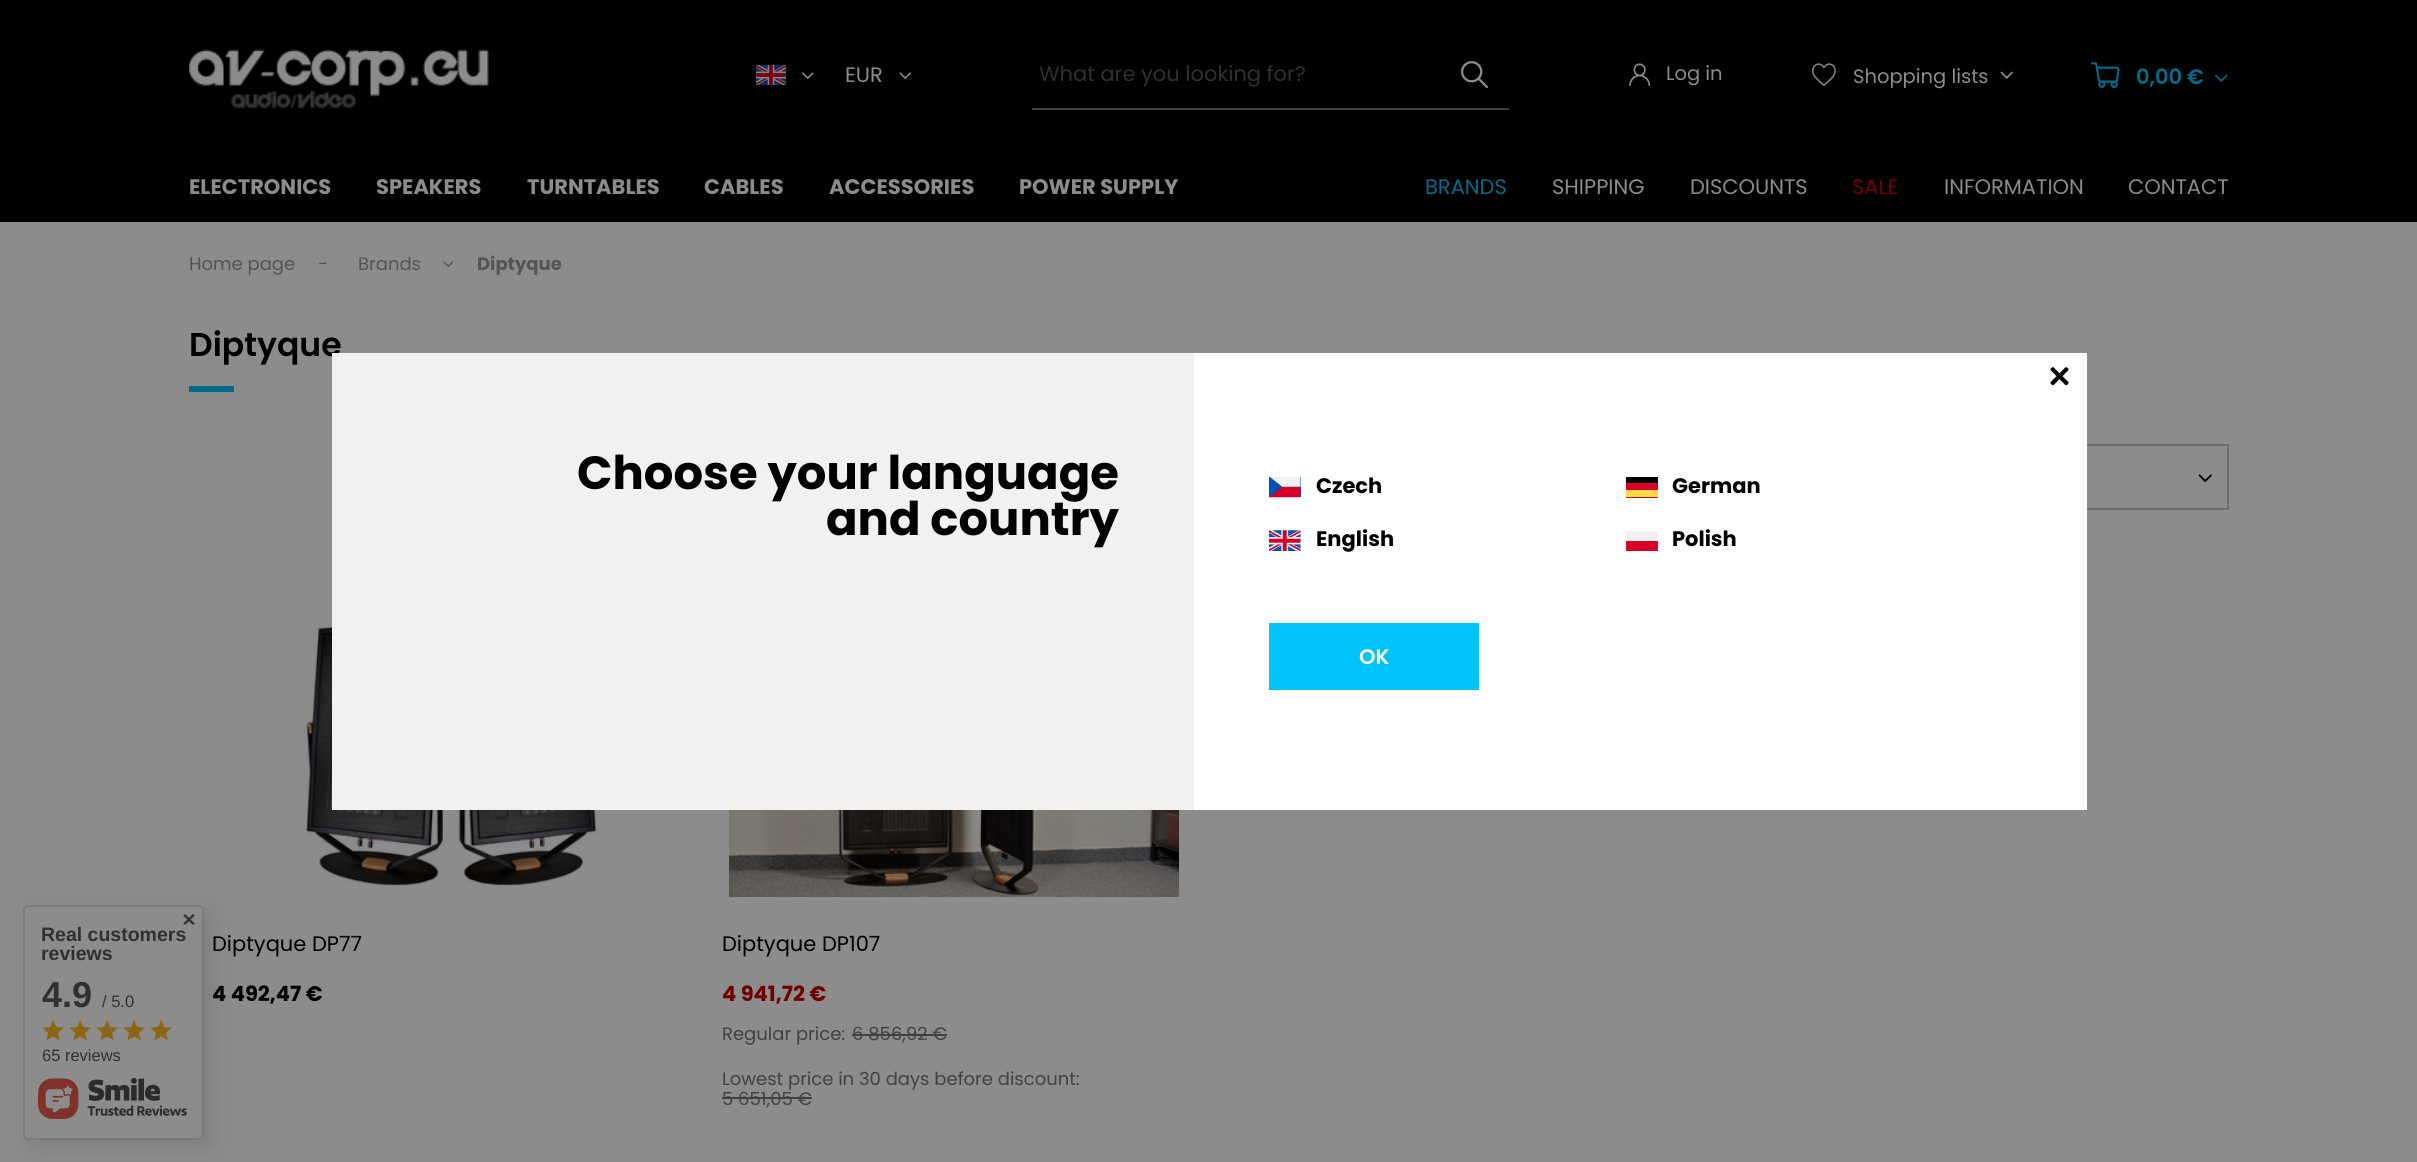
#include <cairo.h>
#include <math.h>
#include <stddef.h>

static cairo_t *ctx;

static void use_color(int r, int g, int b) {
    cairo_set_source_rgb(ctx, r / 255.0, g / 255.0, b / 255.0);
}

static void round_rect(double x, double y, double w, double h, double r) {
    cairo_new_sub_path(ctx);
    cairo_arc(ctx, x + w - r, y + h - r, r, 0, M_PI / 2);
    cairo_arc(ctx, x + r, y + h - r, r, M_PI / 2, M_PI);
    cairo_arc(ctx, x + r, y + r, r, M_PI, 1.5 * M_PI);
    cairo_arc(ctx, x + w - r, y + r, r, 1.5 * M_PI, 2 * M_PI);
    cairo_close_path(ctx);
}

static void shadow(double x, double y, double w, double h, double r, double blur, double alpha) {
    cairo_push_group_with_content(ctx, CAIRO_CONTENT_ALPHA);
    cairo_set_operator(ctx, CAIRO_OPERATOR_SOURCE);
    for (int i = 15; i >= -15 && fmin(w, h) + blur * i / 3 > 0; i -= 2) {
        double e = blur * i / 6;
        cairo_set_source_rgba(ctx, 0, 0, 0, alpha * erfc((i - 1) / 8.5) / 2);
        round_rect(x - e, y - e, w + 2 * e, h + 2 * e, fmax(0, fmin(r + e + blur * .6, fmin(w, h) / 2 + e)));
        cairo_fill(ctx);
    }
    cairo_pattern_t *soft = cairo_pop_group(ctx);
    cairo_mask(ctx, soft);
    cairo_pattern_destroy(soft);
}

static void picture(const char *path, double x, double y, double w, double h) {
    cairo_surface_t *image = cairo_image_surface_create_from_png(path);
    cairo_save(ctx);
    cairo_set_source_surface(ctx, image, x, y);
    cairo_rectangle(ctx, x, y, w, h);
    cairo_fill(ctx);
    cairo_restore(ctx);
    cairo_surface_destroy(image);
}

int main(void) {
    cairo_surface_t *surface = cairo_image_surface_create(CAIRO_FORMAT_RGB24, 2417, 1162);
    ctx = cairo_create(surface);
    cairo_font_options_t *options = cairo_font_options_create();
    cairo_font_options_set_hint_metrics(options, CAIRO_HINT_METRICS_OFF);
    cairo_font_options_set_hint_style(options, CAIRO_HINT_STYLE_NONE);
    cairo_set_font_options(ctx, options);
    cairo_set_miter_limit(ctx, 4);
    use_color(140, 140, 140);
    cairo_paint(ctx);
    use_color(0, 0, 0);
    cairo_rectangle(ctx, 0, 0, 2417, 222);
    cairo_fill(ctx);
    picture("img1.png", 189, 49, 300, 61);
    picture("img2.png", 756, 65, 30, 20);
    picture("img3.png", 802, 72, 12, 8);
    cairo_select_font_face(ctx, "Poppins", CAIRO_FONT_SLANT_NORMAL, CAIRO_FONT_WEIGHT_NORMAL);
    cairo_set_font_size(ctx, 21);
    use_color(140, 140, 140);
    cairo_move_to(ctx, 845, 82);
    cairo_show_text(ctx, "EUR");
    picture("img4.png", 899, 72, 12, 8);
    use_color(65, 65, 65);
    cairo_rectangle(ctx, 1032, 108, 477, 2);
    cairo_fill(ctx);
    cairo_save(ctx);
    cairo_rectangle(ctx, 1040, 59, 357, 31);
    cairo_clip(ctx);
    use_color(48, 48, 48);
    cairo_move_to(ctx, 1039, 81);
    cairo_show_text(ctx, "What are you looking for?");
    cairo_restore(ctx);
    picture("img5.png", 1461, 61, 27, 27);
    picture("img6.png", 1629, 63, 22, 23);
    cairo_set_font_size(ctx, 19.5);
    use_color(140, 140, 140);
    cairo_move_to(ctx, 1666, 80);
    cairo_show_text(ctx, "Log in");
    picture("img7.png", 1812, 63, 24, 23);
    cairo_move_to(ctx, 1853, 83);
    cairo_show_text(ctx, "Shopping lists");
    picture("img8.png", 2000, 71, 13, 8);
    picture("img9.png", 2090, 62, 30, 27);
    cairo_select_font_face(ctx, "Poppins SemiBold", CAIRO_FONT_SLANT_NORMAL, CAIRO_FONT_WEIGHT_NORMAL);
    cairo_set_font_size(ctx, 21);
    use_color(0, 107, 139);
    cairo_move_to(ctx, 2136, 84);
    cairo_show_text(ctx, "0,00 €");
    picture("img10.png", 2215, 74, 13, 8);
    cairo_select_font_face(ctx, "Poppins", CAIRO_FONT_SLANT_NORMAL, CAIRO_FONT_WEIGHT_BOLD);
    use_color(140, 140, 140);
    cairo_move_to(ctx, 189, 194);
    cairo_show_text(ctx, "ELECTRONICS");
    cairo_move_to(ctx, 376, 194);
    cairo_show_text(ctx, "SPEAKERS");
    cairo_move_to(ctx, 527, 194);
    cairo_show_text(ctx, "TURNTABLES");
    cairo_move_to(ctx, 704, 194);
    cairo_show_text(ctx, "CABLES");
    cairo_move_to(ctx, 829, 194);
    cairo_show_text(ctx, "ACCESSORIES");
    cairo_move_to(ctx, 1019, 194);
    cairo_show_text(ctx, "POWER SUPPLY");
    cairo_select_font_face(ctx, "Poppins", CAIRO_FONT_SLANT_NORMAL, CAIRO_FONT_WEIGHT_NORMAL);
    use_color(0, 107, 139);
    cairo_move_to(ctx, 1425, 194);
    cairo_show_text(ctx, "BRANDS");
    use_color(140, 140, 140);
    cairo_move_to(ctx, 1552, 194);
    cairo_show_text(ctx, "SHIPPING");
    cairo_move_to(ctx, 1690, 194);
    cairo_show_text(ctx, "DISCOUNTS");
    use_color(112, 0, 0);
    cairo_move_to(ctx, 1852, 194);
    cairo_show_text(ctx, "SALE");
    use_color(140, 140, 140);
    cairo_move_to(ctx, 1944, 194);
    cairo_show_text(ctx, "INFORMATION");
    cairo_move_to(ctx, 2128, 194);
    cairo_show_text(ctx, "CONTACT");
    cairo_set_font_size(ctx, 18);
    use_color(84, 84, 84);
    cairo_move_to(ctx, 189, 270);
    cairo_show_text(ctx, "Home page");
    cairo_move_to(ctx, 318, 270);
    cairo_show_text(ctx, "-");
    cairo_move_to(ctx, 358, 270);
    cairo_show_text(ctx, "Brands");
    picture("img11.png", 443, 261, 11, 6);
    cairo_select_font_face(ctx, "Poppins", CAIRO_FONT_SLANT_NORMAL, CAIRO_FONT_WEIGHT_BOLD);
    cairo_move_to(ctx, 477, 270);
    cairo_show_text(ctx, "Diptyque");
    cairo_select_font_face(ctx, "Poppins SemiBold", CAIRO_FONT_SLANT_NORMAL, CAIRO_FONT_WEIGHT_NORMAL);
    cairo_set_font_size(ctx, 33);
    use_color(0, 0, 0);
    cairo_move_to(ctx, 189, 356);
    cairo_show_text(ctx, "Diptyque");
    use_color(0, 107, 139);
    cairo_rectangle(ctx, 189, 386, 45, 6);
    cairo_fill(ctx);
    cairo_rectangle(ctx, 1885, 445, 343, 64);
    use_color(108, 109, 110);
    cairo_stroke(ctx);
    picture("img12.png", 2198, 474, 14, 9);
    picture("img13.png", 302, 616, 298, 270);
    cairo_select_font_face(ctx, "Poppins", CAIRO_FONT_SLANT_NORMAL, CAIRO_FONT_WEIGHT_NORMAL);
    cairo_set_font_size(ctx, 21);
    use_color(0, 0, 0);
    cairo_move_to(ctx, 212, 951);
    cairo_show_text(ctx, "Diptyque DP77");
    cairo_select_font_face(ctx, "Poppins", CAIRO_FONT_SLANT_NORMAL, CAIRO_FONT_WEIGHT_BOLD);
    cairo_move_to(ctx, 212, 1001);
    cairo_show_text(ctx, "4 492,47 €");
    picture("img14.png", 729, 810, 450, 87);
    cairo_select_font_face(ctx, "Poppins", CAIRO_FONT_SLANT_NORMAL, CAIRO_FONT_WEIGHT_NORMAL);
    cairo_move_to(ctx, 722, 951);
    cairo_show_text(ctx, "Diptyque DP107");
    cairo_select_font_face(ctx, "Poppins", CAIRO_FONT_SLANT_NORMAL, CAIRO_FONT_WEIGHT_BOLD);
    use_color(112, 0, 0);
    cairo_move_to(ctx, 722, 1001);
    cairo_show_text(ctx, "4 941,72 €");
    cairo_select_font_face(ctx, "Poppins", CAIRO_FONT_SLANT_NORMAL, CAIRO_FONT_WEIGHT_NORMAL);
    cairo_set_font_size(ctx, 18);
    use_color(65, 65, 65);
    cairo_move_to(ctx, 722, 1040);
    cairo_show_text(ctx, "Regular price:");
    cairo_move_to(ctx, 852, 1040);
    cairo_show_text(ctx, "6 856,92 €");
    cairo_rectangle(ctx, 852, 1034, 95, 2);
    cairo_fill(ctx);
    cairo_move_to(ctx, 722, 1085);
    cairo_show_text(ctx, "Lowest price in 30 days before discount:");
    cairo_move_to(ctx, 722, 1105);
    cairo_show_text(ctx, "5 651,05 €");
    cairo_rectangle(ctx, 722, 1097, 90, 2);
    cairo_fill(ctx);
    use_color(255, 255, 255);
    cairo_rectangle(ctx, 1194, 353, 893, 457);
    cairo_fill(ctx);
    picture("img15.png", 2050, 367, 19, 19);
    use_color(241, 241, 241);
    cairo_rectangle(ctx, 332, 353, 862, 457);
    cairo_fill(ctx);
    cairo_select_font_face(ctx, "Poppins", CAIRO_FONT_SLANT_NORMAL, CAIRO_FONT_WEIGHT_BOLD);
    cairo_set_font_size(ctx, 46.5);
    use_color(0, 0, 0);
    cairo_move_to(ctx, 577, 489);
    cairo_show_text(ctx, "Choose your language");
    cairo_move_to(ctx, 826, 535);
    cairo_show_text(ctx, "and country");
    picture("img16.png", 1269, 477, 32, 21);
    cairo_set_font_size(ctx, 21);
    cairo_move_to(ctx, 1316, 493);
    cairo_show_text(ctx, "Czech");
    use_color(216, 0, 39);
    cairo_rectangle(ctx, 1626, 483, 32, 15);
    cairo_fill(ctx);
    use_color(0, 0, 0);
    cairo_rectangle(ctx, 1626, 477, 32, 6);
    cairo_fill(ctx);
    use_color(255, 218, 68);
    cairo_rectangle(ctx, 1626, 490, 32, 7);
    cairo_fill(ctx);
    use_color(0, 0, 0);
    cairo_move_to(ctx, 1672, 493);
    cairo_show_text(ctx, "German");
    picture("img17.png", 1269, 530, 32, 21);
    cairo_move_to(ctx, 1316, 546);
    cairo_show_text(ctx, "English");
    use_color(240, 240, 240);
    cairo_rectangle(ctx, 1626, 531, 32, 10);
    cairo_fill(ctx);
    use_color(216, 0, 39);
    cairo_rectangle(ctx, 1626, 541, 32, 10);
    cairo_fill(ctx);
    use_color(0, 0, 0);
    cairo_move_to(ctx, 1672, 546);
    cairo_show_text(ctx, "Polish");
    use_color(0, 195, 252);
    cairo_rectangle(ctx, 1269, 623, 210, 67);
    cairo_fill(ctx);
    cairo_select_font_face(ctx, "Poppins SemiBold", CAIRO_FONT_SLANT_NORMAL, CAIRO_FONT_WEIGHT_NORMAL);
    use_color(255, 255, 255);
    cairo_move_to(ctx, 1359, 664);
    cairo_show_text(ctx, "OK");
    use_color(0, 0, 0);
    shadow(30, 912, 182, 236, 5, 11, 0.1);
    use_color(140, 140, 140);
    round_rect(24, 906, 179, 233, 4);
    cairo_fill_preserve(ctx);
    use_color(122, 122, 122);
    cairo_stroke(ctx);
    picture("img18.png", 183, 914, 12, 11);
    cairo_select_font_face(ctx, "Liberation Sans", CAIRO_FONT_SLANT_NORMAL, CAIRO_FONT_WEIGHT_BOLD);
    cairo_set_font_size(ctx, 19.5);
    use_color(48, 48, 48);
    cairo_move_to(ctx, 41, 941);
    cairo_show_text(ctx, "Real customers");
    cairo_move_to(ctx, 41, 960);
    cairo_show_text(ctx, "reviews");
    cairo_set_font_size(ctx, 36);
    cairo_move_to(ctx, 42, 1007);
    cairo_show_text(ctx, "4.9");
    cairo_select_font_face(ctx, "Liberation Sans", CAIRO_FONT_SLANT_NORMAL, CAIRO_FONT_WEIGHT_NORMAL);
    cairo_set_font_size(ctx, 16.5);
    cairo_move_to(ctx, 102, 1007);
    cairo_show_text(ctx, "/ 5.0");
    picture("img19.png", 42, 1020, 22, 21);
    picture("img19.png", 69, 1020, 22, 21);
    picture("img19.png", 96, 1020, 22, 21);
    picture("img19.png", 123, 1020, 22, 21);
    picture("img19.png", 150, 1020, 22, 21);
    cairo_move_to(ctx, 42, 1061);
    cairo_show_text(ctx, "65 reviews");
    picture("img20.png", 38, 1077, 149, 42);
    cairo_surface_write_to_png(surface, "result.png");
    cairo_font_options_destroy(options);
    cairo_destroy(ctx);
    cairo_surface_destroy(surface);
    return 0;
}
